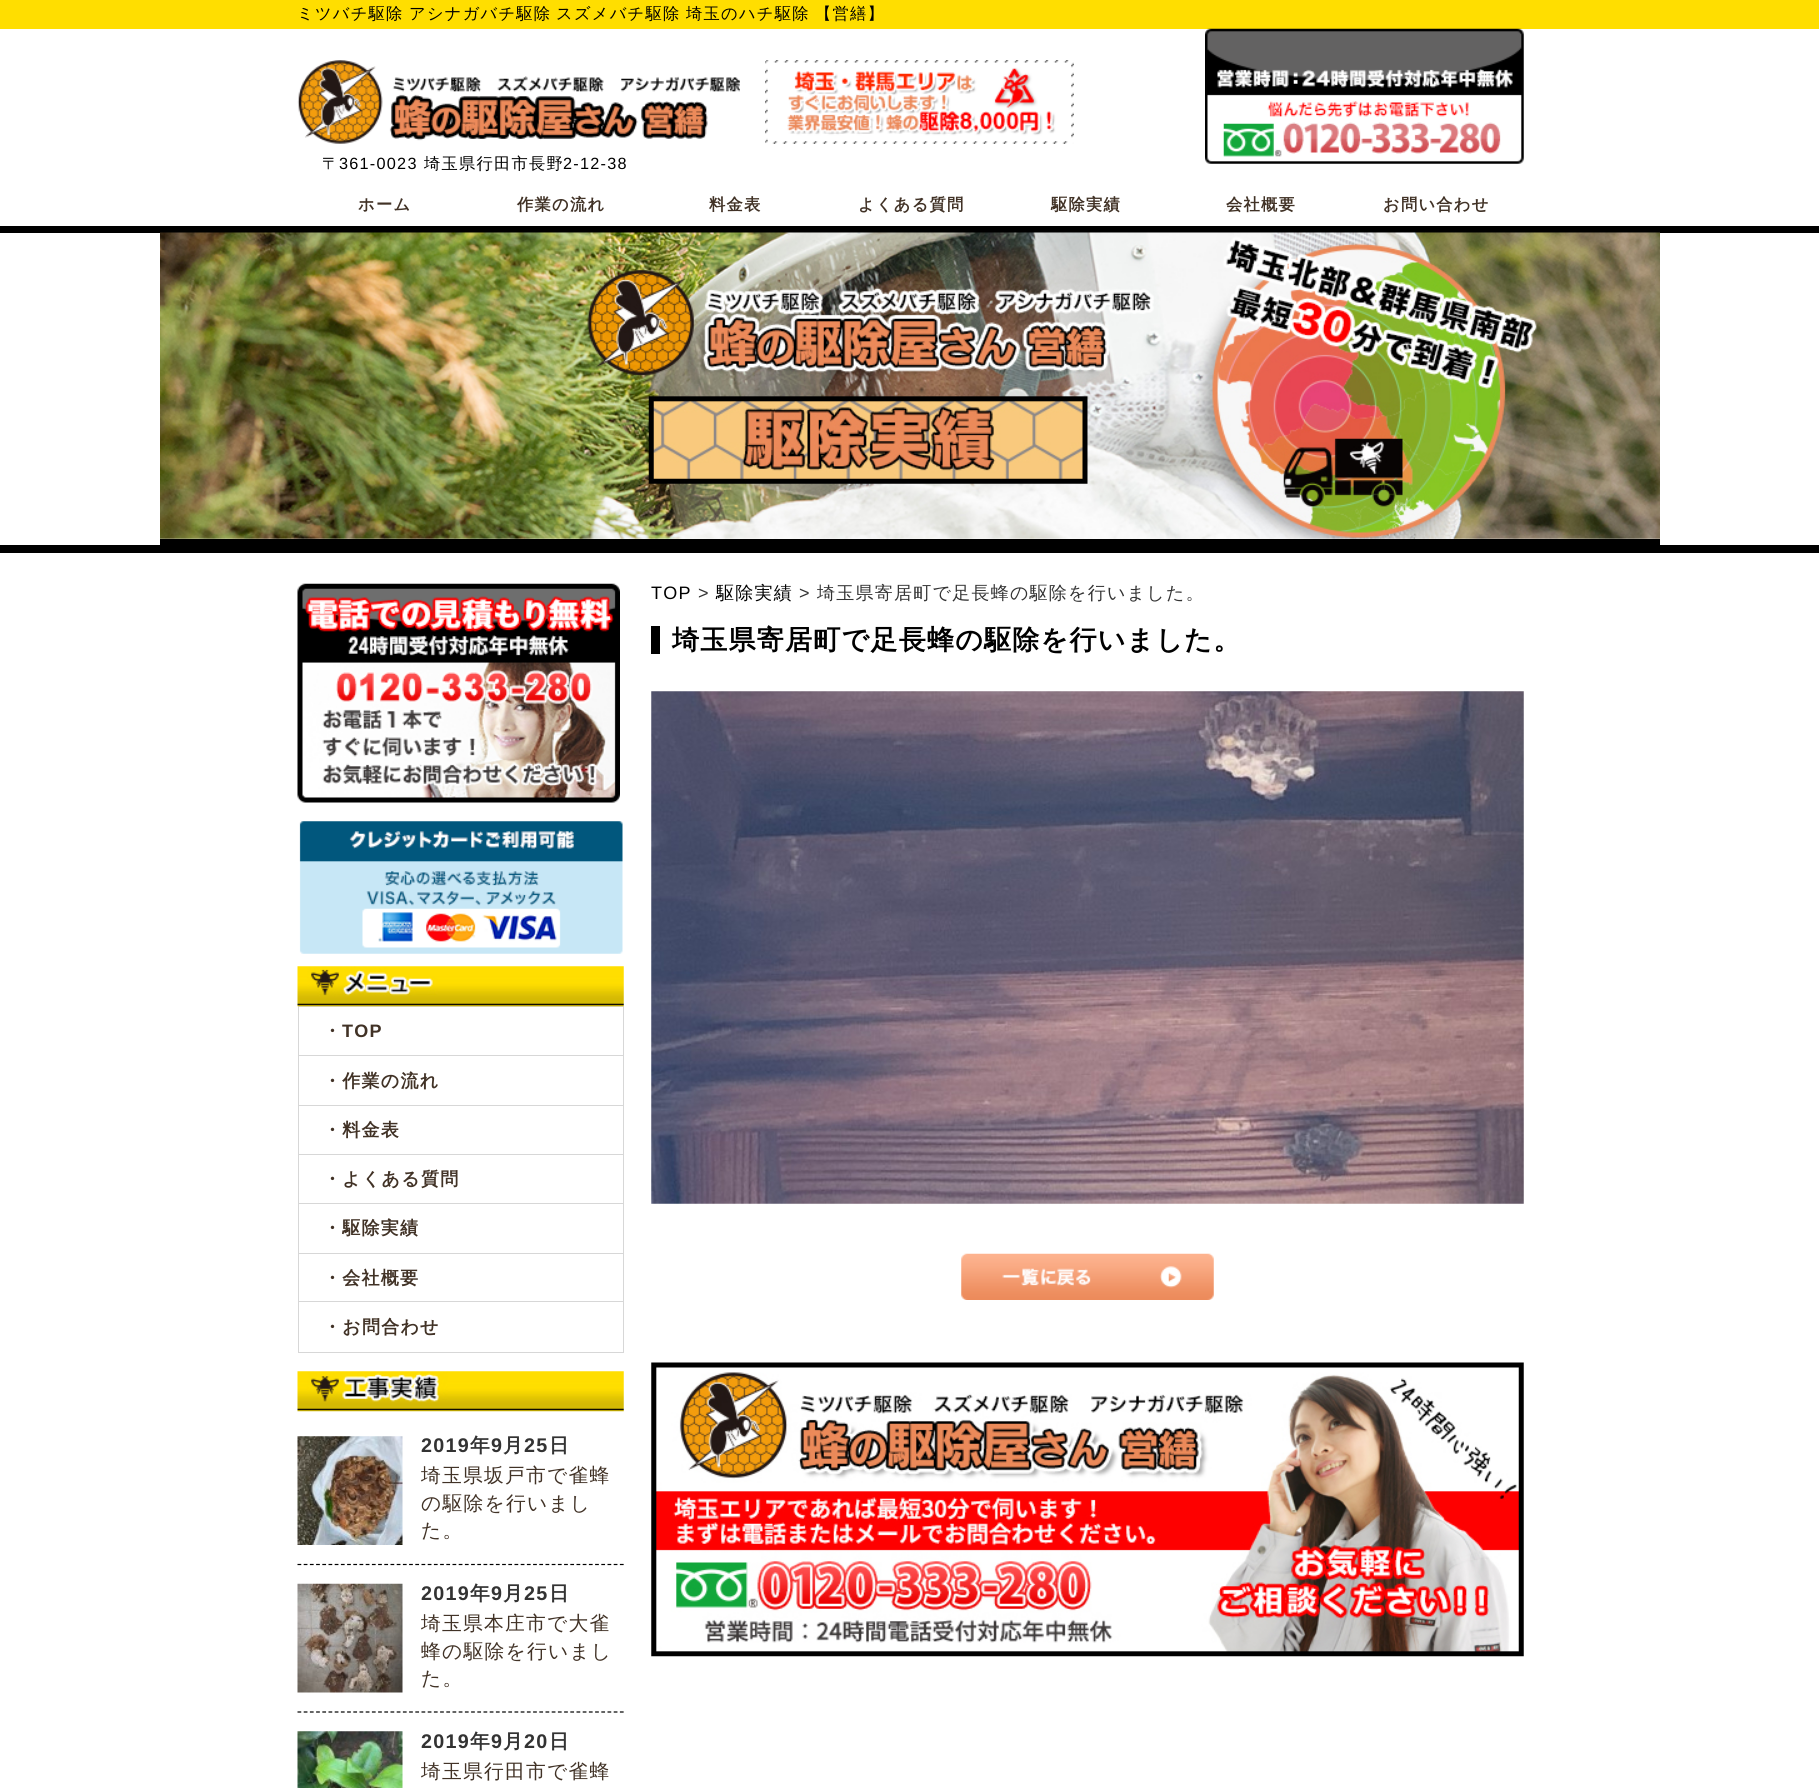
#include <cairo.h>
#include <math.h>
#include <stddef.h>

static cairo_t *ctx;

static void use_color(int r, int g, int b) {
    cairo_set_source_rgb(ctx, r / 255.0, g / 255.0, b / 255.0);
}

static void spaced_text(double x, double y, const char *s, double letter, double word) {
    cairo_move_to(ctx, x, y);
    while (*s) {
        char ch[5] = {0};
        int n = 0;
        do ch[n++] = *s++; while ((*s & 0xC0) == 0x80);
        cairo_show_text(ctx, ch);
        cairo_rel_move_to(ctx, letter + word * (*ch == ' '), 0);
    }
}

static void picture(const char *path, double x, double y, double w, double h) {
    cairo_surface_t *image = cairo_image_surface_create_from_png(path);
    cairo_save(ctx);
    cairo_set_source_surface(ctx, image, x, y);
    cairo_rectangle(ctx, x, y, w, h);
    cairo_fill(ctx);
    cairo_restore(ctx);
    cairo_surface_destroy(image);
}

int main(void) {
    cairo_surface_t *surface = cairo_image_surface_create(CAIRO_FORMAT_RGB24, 1819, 1788);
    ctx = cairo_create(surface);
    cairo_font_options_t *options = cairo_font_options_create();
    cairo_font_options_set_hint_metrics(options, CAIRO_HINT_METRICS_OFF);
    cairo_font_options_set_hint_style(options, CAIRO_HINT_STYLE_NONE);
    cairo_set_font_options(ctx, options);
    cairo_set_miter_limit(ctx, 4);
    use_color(255, 255, 255);
    cairo_paint(ctx);
    use_color(0, 0, 0);
    cairo_rectangle(ctx, 0, 226, 1819, 7);
    cairo_fill(ctx);
    use_color(255, 222, 0);
    cairo_rectangle(ctx, 0, 0, 1819, 29);
    cairo_fill(ctx);
    cairo_select_font_face(ctx, "WenQuanYi Zen Hei Medium", CAIRO_FONT_SLANT_NORMAL, CAIRO_FONT_WEIGHT_NORMAL);
    cairo_set_font_size(ctx, 16.25);
    use_color(0, 0, 0);
    spaced_text(297, 19, "ミツバチ駆除", 1.25, 0);
    spaced_text(409, 19, "アシナガバチ駆除", 1.25, 0);
    spaced_text(556, 19, "スズメバチ駆除", 1.25, 0);
    spaced_text(686, 19, "埼玉のハチ駆除", 1.25, 0);
    spaced_text(815, 19, "【営繕】", 1.25, 0);
    picture("img1.png", 765, 60, 309, 84);
    picture("img2.png", 297, 60, 443, 84);
    spaced_text(322, 169, "〒", 1.25, 0);
    cairo_select_font_face(ctx, "Liberation Sans", CAIRO_FONT_SLANT_NORMAL, CAIRO_FONT_WEIGHT_NORMAL);
    spaced_text(339, 169, "361-0023", 1.25, 0);
    cairo_select_font_face(ctx, "WenQuanYi Zen Hei Medium", CAIRO_FONT_SLANT_NORMAL, CAIRO_FONT_WEIGHT_NORMAL);
    spaced_text(424, 169, "埼玉県行田市長野", 1.25, 0);
    cairo_select_font_face(ctx, "Liberation Sans", CAIRO_FONT_SLANT_NORMAL, CAIRO_FONT_WEIGHT_NORMAL);
    spaced_text(563, 169, "2-12-38", 1.25, 0);
    picture("img3.png", 1205, 28, 319, 136);
    cairo_select_font_face(ctx, "WenQuanYi Zen Hei", CAIRO_FONT_SLANT_NORMAL, CAIRO_FONT_WEIGHT_BOLD);
    use_color(65, 50, 38);
    spaced_text(358, 210, "ホーム", 1.25, 0);
    spaced_text(517, 210, "作業の流れ", 1.25, 0);
    spaced_text(709, 210, "料金表", 1.25, 0);
    spaced_text(858, 210, "よくある質問", 1.25, 0);
    spaced_text(1051, 210, "駆除実績", 1.25, 0);
    spaced_text(1226, 210, "会社概要", 1.25, 0);
    spaced_text(1383, 210, "お問い合わせ", 1.25, 0);
    use_color(0, 0, 0);
    cairo_rectangle(ctx, 0, 545, 1819, 8);
    cairo_fill(ctx);
    picture("img4.png", 160, 232, 1500, 307);
    cairo_rectangle(ctx, 160, 539, 1500, 6);
    cairo_fill(ctx);
    cairo_select_font_face(ctx, "Liberation Sans", CAIRO_FONT_SLANT_NORMAL, CAIRO_FONT_WEIGHT_NORMAL);
    cairo_set_font_size(ctx, 18);
    spaced_text(651, 599, "TOP", 1.25, 0);
    use_color(51, 51, 51);
    spaced_text(698, 599, ">", 1.25, 0);
    cairo_select_font_face(ctx, "WenQuanYi Zen Hei Medium", CAIRO_FONT_SLANT_NORMAL, CAIRO_FONT_WEIGHT_NORMAL);
    use_color(0, 0, 0);
    spaced_text(716, 599, "駆除実績", 1.25, 0);
    cairo_select_font_face(ctx, "Liberation Sans", CAIRO_FONT_SLANT_NORMAL, CAIRO_FONT_WEIGHT_NORMAL);
    use_color(51, 51, 51);
    spaced_text(799, 599, ">", 1.25, 0);
    cairo_select_font_face(ctx, "WenQuanYi Zen Hei Medium", CAIRO_FONT_SLANT_NORMAL, CAIRO_FONT_WEIGHT_NORMAL);
    spaced_text(817, 599, "埼玉県寄居町で足長蜂の駆除を行いました。", 1.25, 0);
    use_color(0, 0, 0);
    cairo_rectangle(ctx, 651, 626, 9, 28);
    cairo_fill(ctx);
    cairo_select_font_face(ctx, "WenQuanYi Zen Hei", CAIRO_FONT_SLANT_NORMAL, CAIRO_FONT_WEIGHT_BOLD);
    cairo_set_font_size(ctx, 27);
    spaced_text(672, 649, "埼玉県寄居町で足長蜂の駆除を行いました。", 1.25, 0);
    picture("img5.png", 651, 691, 873, 513);
    picture("img6.png", 961, 1253, 253, 47);
    picture("img7.png", 651, 1362, 873, 295);
    picture("img8.png", 297, 583, 323, 220);
    picture("img9.png", 299, 821, 324, 133);
    cairo_rectangle(ctx, 298.5, 1006.5, 325, 346);
    use_color(215, 215, 215);
    cairo_set_line_width(ctx, 1);
    cairo_stroke(ctx);
    picture("img10.png", 297, 966, 327, 41);
    cairo_set_font_size(ctx, 18);
    use_color(65, 50, 38);
    spaced_text(323, 1037, "・", 1.25, 0);
    cairo_select_font_face(ctx, "Liberation Sans", CAIRO_FONT_SLANT_NORMAL, CAIRO_FONT_WEIGHT_BOLD);
    spaced_text(342, 1037, "TOP", 1.25, 0);
    use_color(215, 215, 215);
    cairo_rectangle(ctx, 299, 1055, 324, 1);
    cairo_fill(ctx);
    cairo_select_font_face(ctx, "WenQuanYi Zen Hei", CAIRO_FONT_SLANT_NORMAL, CAIRO_FONT_WEIGHT_BOLD);
    use_color(65, 50, 38);
    spaced_text(323, 1087, "・作業の流れ", 1.25, 0);
    use_color(215, 215, 215);
    cairo_rectangle(ctx, 299, 1105, 324, 1);
    cairo_fill(ctx);
    use_color(65, 50, 38);
    spaced_text(323, 1136, "・料金表", 1.25, 0);
    use_color(215, 215, 215);
    cairo_rectangle(ctx, 299, 1154, 324, 1);
    cairo_fill(ctx);
    use_color(65, 50, 38);
    spaced_text(323, 1185, "・よくある質問", 1.25, 0);
    use_color(215, 215, 215);
    cairo_rectangle(ctx, 299, 1203, 324, 1);
    cairo_fill(ctx);
    use_color(65, 50, 38);
    spaced_text(323, 1234, "・駆除実績", 1.25, 0);
    use_color(215, 215, 215);
    cairo_rectangle(ctx, 299, 1253, 324, 1);
    cairo_fill(ctx);
    use_color(65, 50, 38);
    spaced_text(323, 1284, "・会社概要", 1.25, 0);
    use_color(215, 215, 215);
    cairo_rectangle(ctx, 299, 1301, 324, 1);
    cairo_fill(ctx);
    use_color(65, 50, 38);
    spaced_text(323, 1333, "・お問合わせ", 1.25, 0);
    picture("img11.png", 297, 1371, 327, 41);
    cairo_new_path(ctx);
    cairo_move_to(ctx, 297.5, 1564.5);
    cairo_line_to(ctx, 624, 1564.5);
    use_color(0, 0, 0);
    cairo_set_line_width(ctx, 1.2);
    cairo_set_dash(ctx, (double[]){3.75, 2.45}, 2, 0);
    cairo_stroke(ctx);
    picture("img12.png", 297, 1436, 106, 109);
    cairo_select_font_face(ctx, "Liberation Sans", CAIRO_FONT_SLANT_NORMAL, CAIRO_FONT_WEIGHT_BOLD);
    cairo_set_font_size(ctx, 19.75);
    use_color(51, 51, 51);
    spaced_text(421, 1452, "2019", 1.25, 0);
    cairo_select_font_face(ctx, "WenQuanYi Zen Hei", CAIRO_FONT_SLANT_NORMAL, CAIRO_FONT_WEIGHT_BOLD);
    spaced_text(470, 1452, "年", 1.25, 0);
    cairo_select_font_face(ctx, "Liberation Sans", CAIRO_FONT_SLANT_NORMAL, CAIRO_FONT_WEIGHT_BOLD);
    spaced_text(491, 1452, "9", 1.25, 0);
    cairo_select_font_face(ctx, "WenQuanYi Zen Hei", CAIRO_FONT_SLANT_NORMAL, CAIRO_FONT_WEIGHT_BOLD);
    spaced_text(503, 1452, "月", 1.25, 0);
    cairo_select_font_face(ctx, "Liberation Sans", CAIRO_FONT_SLANT_NORMAL, CAIRO_FONT_WEIGHT_BOLD);
    spaced_text(524, 1452, "25", 1.25, 0);
    cairo_select_font_face(ctx, "WenQuanYi Zen Hei", CAIRO_FONT_SLANT_NORMAL, CAIRO_FONT_WEIGHT_BOLD);
    spaced_text(549, 1452, "日", 1.25, 0);
    cairo_select_font_face(ctx, "WenQuanYi Zen Hei Medium", CAIRO_FONT_SLANT_NORMAL, CAIRO_FONT_WEIGHT_NORMAL);
    use_color(65, 50, 38);
    spaced_text(421, 1482, "埼玉県坂戸市で雀蜂", 1.25, 0);
    spaced_text(421, 1510, "の駆除を行いまし", 1.25, 0);
    spaced_text(421, 1537, "た。", 1.25, 0);
    cairo_new_path(ctx);
    cairo_move_to(ctx, 297.5, 1712);
    cairo_line_to(ctx, 624, 1712);
    use_color(0, 0, 0);
    cairo_stroke(ctx);
    picture("img13.png", 297, 1583, 106, 110);
    cairo_select_font_face(ctx, "Liberation Sans", CAIRO_FONT_SLANT_NORMAL, CAIRO_FONT_WEIGHT_BOLD);
    use_color(51, 51, 51);
    spaced_text(421, 1600, "2019", 1.25, 0);
    cairo_select_font_face(ctx, "WenQuanYi Zen Hei", CAIRO_FONT_SLANT_NORMAL, CAIRO_FONT_WEIGHT_BOLD);
    spaced_text(470, 1600, "年", 1.25, 0);
    cairo_select_font_face(ctx, "Liberation Sans", CAIRO_FONT_SLANT_NORMAL, CAIRO_FONT_WEIGHT_BOLD);
    spaced_text(491, 1600, "9", 1.25, 0);
    cairo_select_font_face(ctx, "WenQuanYi Zen Hei", CAIRO_FONT_SLANT_NORMAL, CAIRO_FONT_WEIGHT_BOLD);
    spaced_text(503, 1600, "月", 1.25, 0);
    cairo_select_font_face(ctx, "Liberation Sans", CAIRO_FONT_SLANT_NORMAL, CAIRO_FONT_WEIGHT_BOLD);
    spaced_text(524, 1600, "25", 1.25, 0);
    cairo_select_font_face(ctx, "WenQuanYi Zen Hei", CAIRO_FONT_SLANT_NORMAL, CAIRO_FONT_WEIGHT_BOLD);
    spaced_text(549, 1600, "日", 1.25, 0);
    cairo_select_font_face(ctx, "WenQuanYi Zen Hei Medium", CAIRO_FONT_SLANT_NORMAL, CAIRO_FONT_WEIGHT_NORMAL);
    use_color(65, 50, 38);
    spaced_text(421, 1630, "埼玉県本庄市で大雀", 1.25, 0);
    spaced_text(421, 1658, "蜂の駆除を行いまし", 1.25, 0);
    spaced_text(421, 1685, "た。", 1.25, 0);
    picture("img14.png", 297, 1731, 106, 57);
    cairo_select_font_face(ctx, "Liberation Sans", CAIRO_FONT_SLANT_NORMAL, CAIRO_FONT_WEIGHT_BOLD);
    use_color(51, 51, 51);
    spaced_text(421, 1748, "2019", 1.25, 0);
    cairo_select_font_face(ctx, "WenQuanYi Zen Hei", CAIRO_FONT_SLANT_NORMAL, CAIRO_FONT_WEIGHT_BOLD);
    spaced_text(470, 1748, "年", 1.25, 0);
    cairo_select_font_face(ctx, "Liberation Sans", CAIRO_FONT_SLANT_NORMAL, CAIRO_FONT_WEIGHT_BOLD);
    spaced_text(491, 1748, "9", 1.25, 0);
    cairo_select_font_face(ctx, "WenQuanYi Zen Hei", CAIRO_FONT_SLANT_NORMAL, CAIRO_FONT_WEIGHT_BOLD);
    spaced_text(503, 1748, "月", 1.25, 0);
    cairo_select_font_face(ctx, "Liberation Sans", CAIRO_FONT_SLANT_NORMAL, CAIRO_FONT_WEIGHT_BOLD);
    spaced_text(524, 1748, "20", 1.25, 0);
    cairo_select_font_face(ctx, "WenQuanYi Zen Hei", CAIRO_FONT_SLANT_NORMAL, CAIRO_FONT_WEIGHT_BOLD);
    spaced_text(549, 1748, "日", 1.25, 0);
    cairo_select_font_face(ctx, "WenQuanYi Zen Hei Medium", CAIRO_FONT_SLANT_NORMAL, CAIRO_FONT_WEIGHT_NORMAL);
    use_color(65, 50, 38);
    spaced_text(421, 1778, "埼玉県行田市で雀蜂", 1.25, 0);
    cairo_surface_write_to_png(surface, "result.png");
    cairo_font_options_destroy(options);
    cairo_destroy(ctx);
    cairo_surface_destroy(surface);
    return 0;
}
